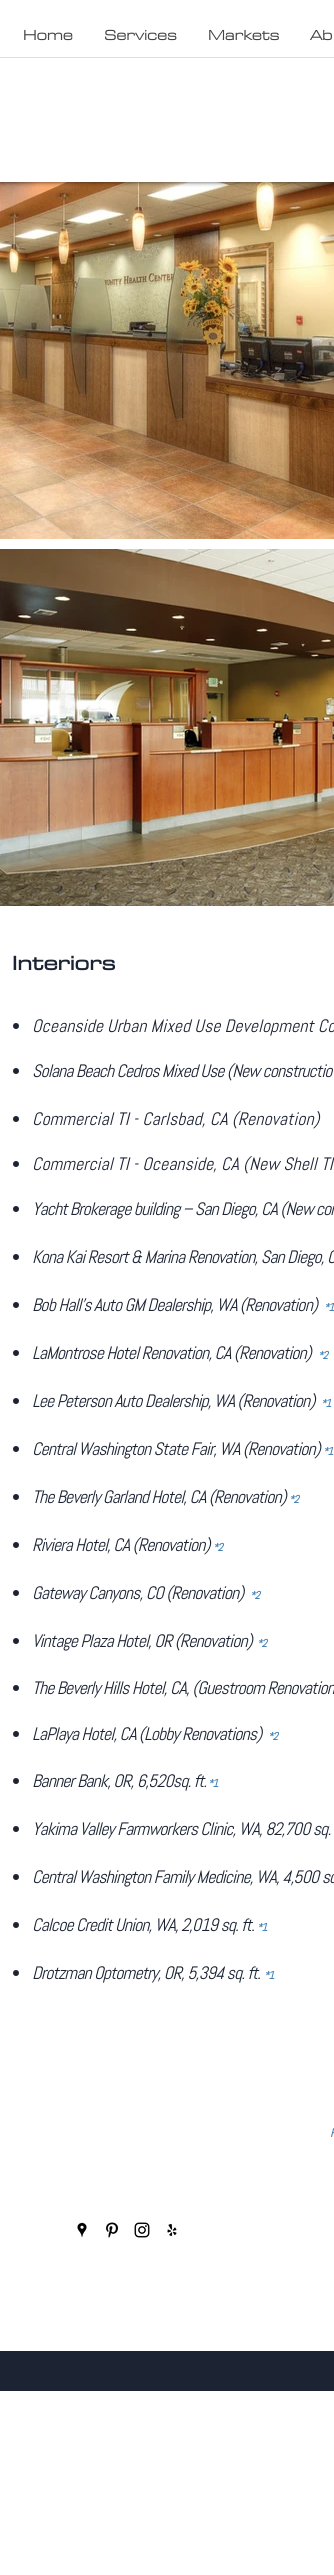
#include <cairo.h>
#include <math.h>
#include <stddef.h>

static cairo_t *ctx;

static void use_color(int r, int g, int b) {
    cairo_set_source_rgb(ctx, r / 255.0, g / 255.0, b / 255.0);
}

static void spaced_text(double x, double y, const char *s, double letter, double word) {
    cairo_move_to(ctx, x, y);
    while (*s) {
        char ch[5] = {0};
        int n = 0;
        do ch[n++] = *s++; while ((*s & 0xC0) == 0x80);
        cairo_show_text(ctx, ch);
        cairo_rel_move_to(ctx, letter + word * (*ch == ' '), 0);
    }
}

static void round_rect(double x, double y, double w, double h, double r) {
    cairo_new_sub_path(ctx);
    cairo_arc(ctx, x + w - r, y + h - r, r, 0, M_PI / 2);
    cairo_arc(ctx, x + r, y + h - r, r, M_PI / 2, M_PI);
    cairo_arc(ctx, x + r, y + r, r, M_PI, 1.5 * M_PI);
    cairo_arc(ctx, x + w - r, y + r, r, 1.5 * M_PI, 2 * M_PI);
    cairo_close_path(ctx);
}

static void shadow(double x, double y, double w, double h, double r, double blur, double alpha) {
    cairo_push_group_with_content(ctx, CAIRO_CONTENT_ALPHA);
    cairo_set_operator(ctx, CAIRO_OPERATOR_SOURCE);
    for (int i = 15; i >= -15 && fmin(w, h) + blur * i / 3 > 0; i -= 2) {
        double e = blur * i / 6;
        cairo_set_source_rgba(ctx, 0, 0, 0, alpha * erfc((i - 1) / 8.5) / 2);
        round_rect(x - e, y - e, w + 2 * e, h + 2 * e, fmax(0, fmin(r + e + blur * .6, fmin(w, h) / 2 + e)));
        cairo_fill(ctx);
    }
    cairo_pattern_t *soft = cairo_pop_group(ctx);
    cairo_mask(ctx, soft);
    cairo_pattern_destroy(soft);
}

static void picture(const char *path, double x, double y, double w, double h) {
    cairo_surface_t *image = cairo_image_surface_create_from_png(path);
    cairo_save(ctx);
    cairo_set_source_surface(ctx, image, x, y);
    cairo_rectangle(ctx, x, y, w, h);
    cairo_fill(ctx);
    cairo_restore(ctx);
    cairo_surface_destroy(image);
}

int main(void) {
    cairo_surface_t *surface = cairo_image_surface_create(CAIRO_FORMAT_RGB24, 334, 2575);
    ctx = cairo_create(surface);
    cairo_font_options_t *options = cairo_font_options_create();
    cairo_font_options_set_hint_metrics(options, CAIRO_HINT_METRICS_OFF);
    cairo_font_options_set_hint_style(options, CAIRO_HINT_STYLE_NONE);
    cairo_set_font_options(ctx, options);
    cairo_set_miter_limit(ctx, 4);
    use_color(255, 255, 255);
    cairo_paint(ctx);
    picture("img1.png", 0, 182, 334, 357);
    cairo_save(ctx);
    cairo_rectangle(ctx, 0, 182, 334, 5);
    cairo_clip(ctx);
    use_color(0, 0, 0);
    shadow(0, 0, 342, 182, 0, 2.5, 0.7);
    cairo_restore(ctx);
    cairo_select_font_face(ctx, "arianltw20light", CAIRO_FONT_SLANT_NORMAL, CAIRO_FONT_WEIGHT_BOLD);
    cairo_set_font_size(ctx, 17);
    use_color(68, 68, 68);
    cairo_move_to(ctx, 23, 40);
    cairo_show_text(ctx, "Home");
    cairo_move_to(ctx, 104, 40);
    cairo_show_text(ctx, "Services");
    cairo_move_to(ctx, 208, 40);
    cairo_show_text(ctx, "Markets");
    cairo_move_to(ctx, 310, 40);
    cairo_show_text(ctx, "Ab");
    use_color(221, 222, 225);
    cairo_rectangle(ctx, 0, 57, 334, 1);
    cairo_fill(ctx);
    picture("img2.png", 0, 549, 334, 357);
    cairo_select_font_face(ctx, "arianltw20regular", CAIRO_FONT_SLANT_NORMAL, CAIRO_FONT_WEIGHT_BOLD);
    cairo_set_font_size(ctx, 24);
    use_color(28, 36, 52);
    cairo_move_to(ctx, 12, 970);
    cairo_show_text(ctx, "Interiors");
    cairo_new_path(ctx);
    cairo_arc(ctx, 16, 1026, 3, 0, 2 * M_PI);
    cairo_fill(ctx);
    cairo_select_font_face(ctx, "Abel", CAIRO_FONT_SLANT_ITALIC, CAIRO_FONT_WEIGHT_NORMAL);
    cairo_set_font_size(ctx, 18);
    cairo_move_to(ctx, 32, 1032);
    cairo_show_text(ctx, "Oceanside Urban Mixed Use Development Co");
    cairo_new_path(ctx);
    cairo_arc(ctx, 16, 1071, 3, 0, 2 * M_PI);
    cairo_fill(ctx);
    spaced_text(32, 1077, "Solana Beach Cedros Mixed Use (New constructio", -0.9, 0);
    cairo_new_path(ctx);
    cairo_arc(ctx, 16, 1119, 3, 0, 2 * M_PI);
    cairo_fill(ctx);
    cairo_move_to(ctx, 32, 1125);
    cairo_show_text(ctx, "Commercial TI - Carlsbad, CA (Renovation)");
    cairo_new_path(ctx);
    cairo_arc(ctx, 16, 1164, 3, 0, 2 * M_PI);
    cairo_fill(ctx);
    cairo_move_to(ctx, 32, 1170);
    cairo_show_text(ctx, "Commercial TI - Oceanside, CA (New Shell TI");
    cairo_new_path(ctx);
    cairo_arc(ctx, 16, 1209, 3, 0, 2 * M_PI);
    cairo_fill(ctx);
    spaced_text(32, 1215, "Yacht Brokerage building – San Diego, CA (New con", -0.9, 0);
    cairo_new_path(ctx);
    cairo_arc(ctx, 16, 1257, 3, 0, 2 * M_PI);
    cairo_fill(ctx);
    spaced_text(32, 1263, "Kona Kai Resort & Marina Renovation, San Diego, C", -0.9, 0);
    cairo_new_path(ctx);
    cairo_arc(ctx, 16, 1305, 3, 0, 2 * M_PI);
    cairo_fill(ctx);
    spaced_text(32, 1311, "Bob Hall’s Auto GM Dealership, WA (Renovation)", -0.9, 0);
    cairo_select_font_face(ctx, "Abel", CAIRO_FONT_SLANT_ITALIC, CAIRO_FONT_WEIGHT_BOLD);
    cairo_set_font_size(ctx, 11);
    use_color(70, 130, 180);
    spaced_text(324, 1311, "*1", -0.9, 0);
    use_color(28, 36, 52);
    cairo_new_path(ctx);
    cairo_arc(ctx, 16, 1353, 3, 0, 2 * M_PI);
    cairo_fill(ctx);
    cairo_select_font_face(ctx, "Abel", CAIRO_FONT_SLANT_ITALIC, CAIRO_FONT_WEIGHT_NORMAL);
    cairo_set_font_size(ctx, 18);
    spaced_text(32, 1359, "LaMontrose Hotel Renovation, CA (Renovation)", -0.9, 0);
    cairo_select_font_face(ctx, "Abel", CAIRO_FONT_SLANT_ITALIC, CAIRO_FONT_WEIGHT_BOLD);
    cairo_set_font_size(ctx, 11);
    use_color(70, 130, 180);
    spaced_text(318, 1359, "*2", -0.9, 0);
    use_color(28, 36, 52);
    cairo_new_path(ctx);
    cairo_arc(ctx, 16, 1401, 3, 0, 2 * M_PI);
    cairo_fill(ctx);
    cairo_select_font_face(ctx, "Abel", CAIRO_FONT_SLANT_ITALIC, CAIRO_FONT_WEIGHT_NORMAL);
    cairo_set_font_size(ctx, 18);
    spaced_text(32, 1407, "Lee Peterson Auto Dealership, WA (Renovation)", -0.9, 0);
    cairo_select_font_face(ctx, "Abel", CAIRO_FONT_SLANT_ITALIC, CAIRO_FONT_WEIGHT_BOLD);
    cairo_set_font_size(ctx, 11);
    use_color(70, 130, 180);
    spaced_text(321, 1407, "*1", -0.9, 0);
    use_color(28, 36, 52);
    cairo_new_path(ctx);
    cairo_arc(ctx, 16, 1449, 3, 0, 2 * M_PI);
    cairo_fill(ctx);
    cairo_select_font_face(ctx, "Abel", CAIRO_FONT_SLANT_ITALIC, CAIRO_FONT_WEIGHT_NORMAL);
    cairo_set_font_size(ctx, 18);
    spaced_text(32, 1455, "Central Washington State Fair, WA (Renovation)", -0.9, 0);
    cairo_select_font_face(ctx, "Abel", CAIRO_FONT_SLANT_ITALIC, CAIRO_FONT_WEIGHT_BOLD);
    cairo_set_font_size(ctx, 11);
    use_color(70, 130, 180);
    spaced_text(323, 1455, "*1", -0.9, 0);
    use_color(28, 36, 52);
    cairo_new_path(ctx);
    cairo_arc(ctx, 16, 1497, 3, 0, 2 * M_PI);
    cairo_fill(ctx);
    cairo_select_font_face(ctx, "Abel", CAIRO_FONT_SLANT_ITALIC, CAIRO_FONT_WEIGHT_NORMAL);
    cairo_set_font_size(ctx, 18);
    spaced_text(32, 1503, "The Beverly Garland Hotel, CA (Renovation)", -0.9, 0);
    cairo_select_font_face(ctx, "Abel", CAIRO_FONT_SLANT_ITALIC, CAIRO_FONT_WEIGHT_BOLD);
    cairo_set_font_size(ctx, 11);
    use_color(70, 130, 180);
    spaced_text(289, 1503, "*2", -0.9, 0);
    use_color(28, 36, 52);
    cairo_new_path(ctx);
    cairo_arc(ctx, 16, 1545, 3, 0, 2 * M_PI);
    cairo_fill(ctx);
    cairo_select_font_face(ctx, "Abel", CAIRO_FONT_SLANT_ITALIC, CAIRO_FONT_WEIGHT_NORMAL);
    cairo_set_font_size(ctx, 18);
    spaced_text(32, 1551, "Riviera Hotel, CA (Renovation)", -0.9, 0);
    cairo_select_font_face(ctx, "Abel", CAIRO_FONT_SLANT_ITALIC, CAIRO_FONT_WEIGHT_BOLD);
    cairo_set_font_size(ctx, 11);
    use_color(70, 130, 180);
    spaced_text(213, 1551, "*2", -0.9, 0);
    use_color(28, 36, 52);
    cairo_new_path(ctx);
    cairo_arc(ctx, 16, 1593, 3, 0, 2 * M_PI);
    cairo_fill(ctx);
    cairo_select_font_face(ctx, "Abel", CAIRO_FONT_SLANT_ITALIC, CAIRO_FONT_WEIGHT_NORMAL);
    cairo_set_font_size(ctx, 18);
    spaced_text(32, 1599, "Gateway Canyons, CO (Renovation)", -0.9, 0);
    cairo_select_font_face(ctx, "Abel", CAIRO_FONT_SLANT_ITALIC, CAIRO_FONT_WEIGHT_BOLD);
    cairo_set_font_size(ctx, 11);
    use_color(70, 130, 180);
    spaced_text(250, 1599, "*2", -0.9, 0);
    use_color(28, 36, 52);
    cairo_new_path(ctx);
    cairo_arc(ctx, 16, 1641, 3, 0, 2 * M_PI);
    cairo_fill(ctx);
    cairo_select_font_face(ctx, "Abel", CAIRO_FONT_SLANT_ITALIC, CAIRO_FONT_WEIGHT_NORMAL);
    cairo_set_font_size(ctx, 18);
    spaced_text(32, 1647, "Vintage Plaza Hotel, OR (Renovation)", -0.9, 0);
    cairo_select_font_face(ctx, "Abel", CAIRO_FONT_SLANT_ITALIC, CAIRO_FONT_WEIGHT_BOLD);
    cairo_set_font_size(ctx, 11);
    use_color(70, 130, 180);
    spaced_text(257, 1647, "*2", -0.9, 0);
    use_color(28, 36, 52);
    cairo_new_path(ctx);
    cairo_arc(ctx, 16, 1688, 3, 0, 2 * M_PI);
    cairo_fill(ctx);
    cairo_select_font_face(ctx, "Abel", CAIRO_FONT_SLANT_ITALIC, CAIRO_FONT_WEIGHT_NORMAL);
    cairo_set_font_size(ctx, 18);
    spaced_text(32, 1694, "The Beverly Hills Hotel, CA, (Guestroom Renovation", -0.9, 0);
    cairo_new_path(ctx);
    cairo_arc(ctx, 16, 1734, 3, 0, 2 * M_PI);
    cairo_fill(ctx);
    spaced_text(32, 1740, "LaPlaya Hotel, CA (Lobby Renovations)", -0.9, 0);
    cairo_select_font_face(ctx, "Abel", CAIRO_FONT_SLANT_ITALIC, CAIRO_FONT_WEIGHT_BOLD);
    cairo_set_font_size(ctx, 11);
    use_color(70, 130, 180);
    spaced_text(268, 1740, "*2", -0.9, 0);
    use_color(28, 36, 52);
    cairo_new_path(ctx);
    cairo_arc(ctx, 16, 1781, 3, 0, 2 * M_PI);
    cairo_fill(ctx);
    cairo_select_font_face(ctx, "Abel", CAIRO_FONT_SLANT_ITALIC, CAIRO_FONT_WEIGHT_NORMAL);
    cairo_set_font_size(ctx, 18);
    spaced_text(32, 1787, "Banner Bank, OR, 6,520sq. ft.", -0.9, 0);
    cairo_select_font_face(ctx, "Abel", CAIRO_FONT_SLANT_ITALIC, CAIRO_FONT_WEIGHT_BOLD);
    cairo_set_font_size(ctx, 11);
    use_color(70, 130, 180);
    spaced_text(208, 1787, "*1", -0.9, 0);
    use_color(28, 36, 52);
    cairo_new_path(ctx);
    cairo_arc(ctx, 16, 1829, 3, 0, 2 * M_PI);
    cairo_fill(ctx);
    cairo_select_font_face(ctx, "Abel", CAIRO_FONT_SLANT_ITALIC, CAIRO_FONT_WEIGHT_NORMAL);
    cairo_set_font_size(ctx, 18);
    spaced_text(32, 1835, "Yakima Valley Farmworkers Clinic, WA, 82,700 sq.", -0.9, 0);
    cairo_new_path(ctx);
    cairo_arc(ctx, 16, 1877, 3, 0, 2 * M_PI);
    cairo_fill(ctx);
    spaced_text(32, 1883, "Central Washington Family Medicine, WA, 4,500 sq", -0.9, 0);
    cairo_new_path(ctx);
    cairo_arc(ctx, 16, 1925, 3, 0, 2 * M_PI);
    cairo_fill(ctx);
    spaced_text(32, 1931, "Calcoe Credit Union, WA, 2,019 sq. ft.", -0.9, 0);
    cairo_select_font_face(ctx, "Abel", CAIRO_FONT_SLANT_ITALIC, CAIRO_FONT_WEIGHT_BOLD);
    cairo_set_font_size(ctx, 11);
    use_color(70, 130, 180);
    spaced_text(257, 1931, "*1", -0.9, 0);
    use_color(28, 36, 52);
    cairo_new_path(ctx);
    cairo_arc(ctx, 16, 1973, 3, 0, 2 * M_PI);
    cairo_fill(ctx);
    cairo_select_font_face(ctx, "Abel", CAIRO_FONT_SLANT_ITALIC, CAIRO_FONT_WEIGHT_NORMAL);
    cairo_set_font_size(ctx, 18);
    spaced_text(32, 1979, "Drotzman Optometry, OR, 5,394 sq. ft.", -0.9, 0);
    cairo_select_font_face(ctx, "Abel", CAIRO_FONT_SLANT_ITALIC, CAIRO_FONT_WEIGHT_BOLD);
    cairo_set_font_size(ctx, 11);
    use_color(70, 130, 180);
    spaced_text(264, 1979, "*1", -0.9, 0);
    cairo_set_font_size(ctx, 12);
    cairo_move_to(ctx, 330, 2137);
    cairo_show_text(ctx, "F");
    picture("img3.png", 77, 2222, 10, 15);
    picture("img4.png", 105, 2222, 14, 16);
    picture("img5.png", 134, 2222, 16, 16);
    picture("img6.png", 167, 2223, 10, 14);
    use_color(28, 36, 52);
    cairo_rectangle(ctx, 0, 2351, 334, 40);
    cairo_fill(ctx);
    cairo_surface_write_to_png(surface, "result.png");
    cairo_font_options_destroy(options);
    cairo_destroy(ctx);
    cairo_surface_destroy(surface);
    return 0;
}
